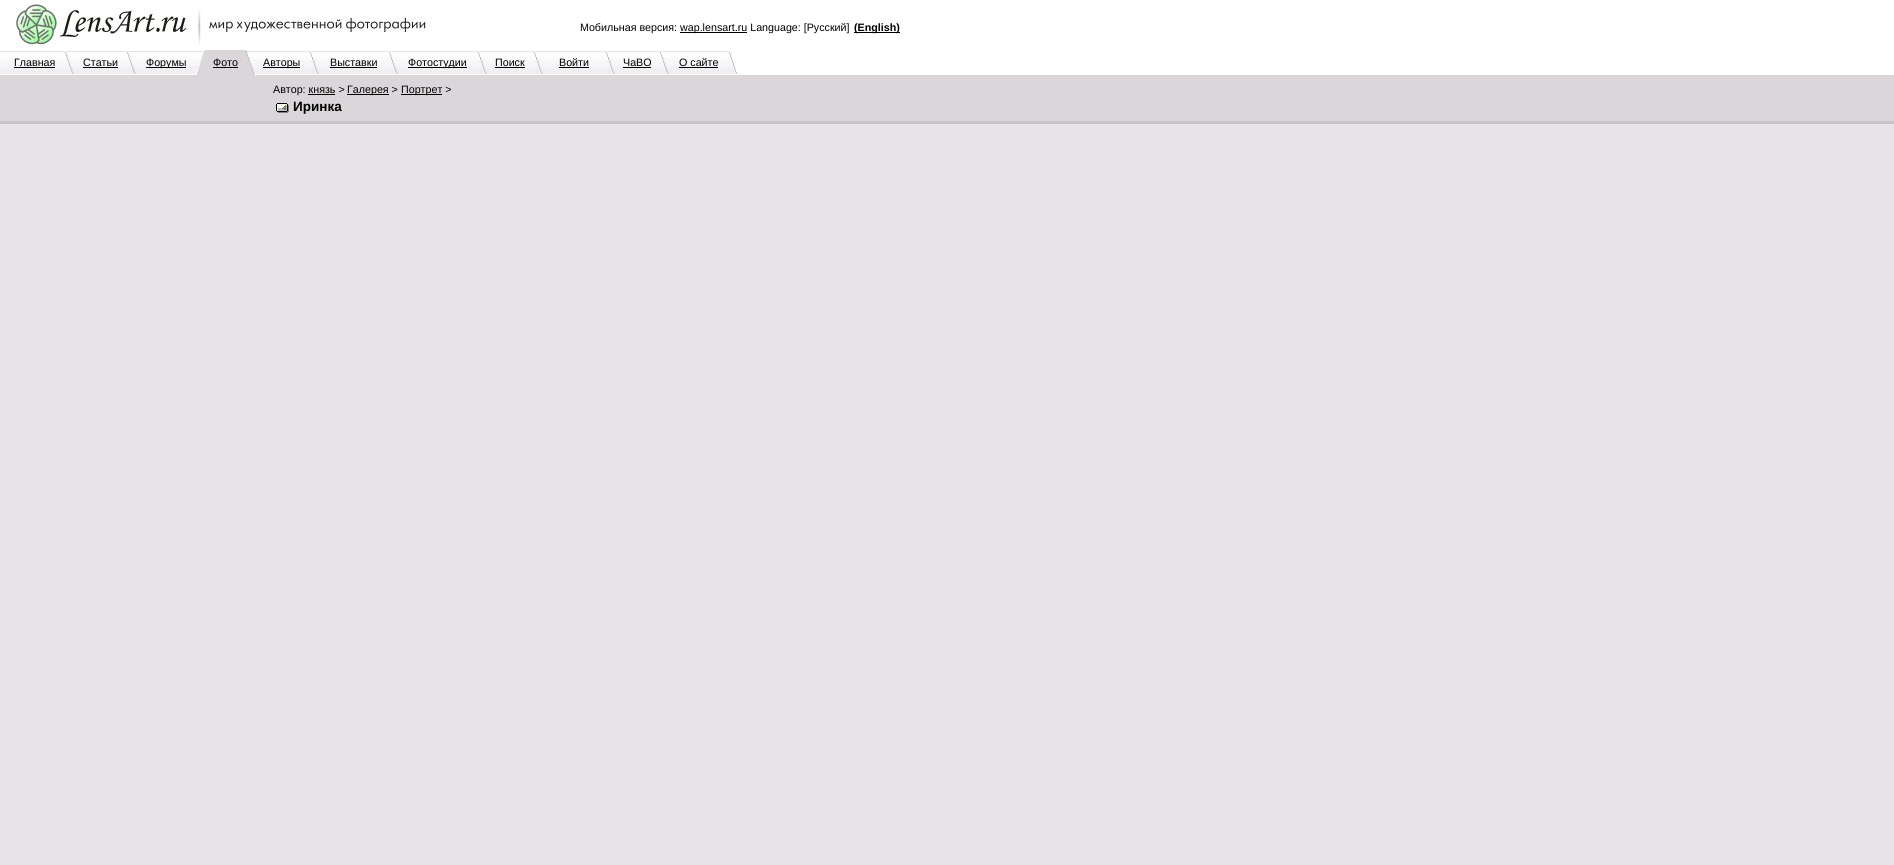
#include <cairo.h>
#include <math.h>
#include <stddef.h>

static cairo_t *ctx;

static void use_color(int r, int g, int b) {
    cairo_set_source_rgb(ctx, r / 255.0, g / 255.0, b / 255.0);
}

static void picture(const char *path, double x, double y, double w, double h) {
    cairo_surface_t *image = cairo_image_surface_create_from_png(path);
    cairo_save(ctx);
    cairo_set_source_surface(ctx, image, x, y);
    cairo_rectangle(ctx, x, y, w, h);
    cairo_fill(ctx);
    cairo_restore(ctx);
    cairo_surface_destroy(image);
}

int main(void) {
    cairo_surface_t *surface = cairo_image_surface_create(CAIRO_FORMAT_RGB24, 1894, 865);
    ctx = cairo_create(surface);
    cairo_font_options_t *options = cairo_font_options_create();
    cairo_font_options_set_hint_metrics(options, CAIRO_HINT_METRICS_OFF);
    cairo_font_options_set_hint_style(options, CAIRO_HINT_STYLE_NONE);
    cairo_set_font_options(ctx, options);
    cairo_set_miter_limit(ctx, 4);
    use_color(255, 255, 255);
    cairo_paint(ctx);
    picture("img1.png", 16, 0, 416, 48);
    cairo_select_font_face(ctx, "Liberation Sans", CAIRO_FONT_SLANT_NORMAL, CAIRO_FONT_WEIGHT_NORMAL);
    cairo_set_font_size(ctx, 10.7);
    use_color(0, 0, 0);
    cairo_move_to(ctx, 580, 31);
    cairo_show_text(ctx, "Мобильная версия:");
    cairo_rectangle(ctx, 680, 32, 67, 1);
    cairo_fill(ctx);
    cairo_move_to(ctx, 680, 31);
    cairo_show_text(ctx, "wap.lensart.ru Language: [Русский]");
    cairo_rectangle(ctx, 854, 32, 46, 1);
    cairo_fill(ctx);
    cairo_select_font_face(ctx, "Liberation Sans", CAIRO_FONT_SLANT_NORMAL, CAIRO_FONT_WEIGHT_BOLD);
    cairo_move_to(ctx, 854, 31);
    cairo_show_text(ctx, "(English)");
    picture("img2.png", 0, 50, 5, 25);
    picture("img3.png", 5, 50, 59, 25);
    cairo_select_font_face(ctx, "Liberation Sans", CAIRO_FONT_SLANT_NORMAL, CAIRO_FONT_WEIGHT_NORMAL);
    cairo_move_to(ctx, 14, 66);
    cairo_show_text(ctx, "Главная");
    cairo_rectangle(ctx, 14, 67, 41, 1);
    cairo_fill(ctx);
    picture("img4.png", 64, 50, 10, 25);
    picture("img5.png", 74, 50, 52, 25);
    cairo_move_to(ctx, 83, 66);
    cairo_show_text(ctx, "Статьи");
    cairo_rectangle(ctx, 83, 67, 35, 1);
    cairo_fill(ctx);
    picture("img4.png", 126, 50, 10, 25);
    picture("img6.png", 136, 50, 60, 25);
    cairo_rectangle(ctx, 146, 67, 40, 1);
    cairo_fill(ctx);
    cairo_move_to(ctx, 146, 66);
    cairo_show_text(ctx, "Форумы");
    picture("img7.png", 196, 50, 9, 25);
    use_color(218, 214, 218);
    cairo_rectangle(ctx, 205, 50, 41, 25);
    cairo_fill(ctx);
    use_color(0, 0, 0);
    cairo_move_to(ctx, 213, 66);
    cairo_show_text(ctx, "Фото");
    cairo_rectangle(ctx, 213, 67, 25, 1);
    cairo_fill(ctx);
    picture("img8.png", 246, 50, 9, 25);
    picture("img9.png", 255, 50, 54, 25);
    cairo_rectangle(ctx, 263, 67, 37, 1);
    cairo_fill(ctx);
    cairo_move_to(ctx, 263, 66);
    cairo_show_text(ctx, "Авторы");
    picture("img4.png", 309, 50, 10, 25);
    picture("img10.png", 319, 50, 69, 25);
    cairo_move_to(ctx, 330, 66);
    cairo_show_text(ctx, "Выставки");
    cairo_rectangle(ctx, 330, 67, 47, 1);
    cairo_fill(ctx);
    picture("img4.png", 388, 50, 10, 25);
    picture("img11.png", 398, 50, 79, 25);
    cairo_rectangle(ctx, 408, 67, 59, 1);
    cairo_fill(ctx);
    cairo_move_to(ctx, 408, 66);
    cairo_show_text(ctx, "Фотостудии");
    picture("img4.png", 477, 50, 10, 25);
    picture("img12.png", 487, 50, 46, 25);
    cairo_move_to(ctx, 495, 66);
    cairo_show_text(ctx, "Поиск");
    cairo_rectangle(ctx, 495, 67, 30, 1);
    cairo_fill(ctx);
    picture("img4.png", 533, 50, 10, 25);
    picture("img13.png", 543, 50, 62, 25);
    cairo_move_to(ctx, 559, 66);
    cairo_show_text(ctx, "Войти");
    cairo_rectangle(ctx, 559, 67, 30, 1);
    cairo_fill(ctx);
    picture("img4.png", 605, 50, 10, 25);
    picture("img14.png", 615, 50, 44, 25);
    cairo_move_to(ctx, 623, 66);
    cairo_show_text(ctx, "ЧаВО");
    cairo_rectangle(ctx, 623, 67, 28, 1);
    cairo_fill(ctx);
    picture("img4.png", 659, 50, 10, 25);
    picture("img3.png", 669, 50, 59, 25);
    cairo_move_to(ctx, 679, 66);
    cairo_show_text(ctx, "О сайте");
    cairo_rectangle(ctx, 679, 67, 39, 1);
    cairo_fill(ctx);
    picture("img15.png", 728, 50, 10, 25);
    use_color(218, 214, 218);
    cairo_rectangle(ctx, 0, 75, 1894, 46);
    cairo_fill(ctx);
    use_color(0, 0, 0);
    cairo_move_to(ctx, 273, 93);
    cairo_show_text(ctx, "Автор: князь >");
    cairo_rectangle(ctx, 347, 94, 42, 1);
    cairo_fill(ctx);
    cairo_move_to(ctx, 347, 93);
    cairo_show_text(ctx, "Галерея >");
    cairo_rectangle(ctx, 401, 94, 41, 1);
    cairo_fill(ctx);
    cairo_move_to(ctx, 401, 93);
    cairo_show_text(ctx, "Портрет >");
    cairo_rectangle(ctx, 308, 94, 27, 1);
    cairo_fill(ctx);
    picture("img16.png", 276, 103, 13, 10);
    cairo_select_font_face(ctx, "Liberation Sans", CAIRO_FONT_SLANT_NORMAL, CAIRO_FONT_WEIGHT_BOLD);
    cairo_set_font_size(ctx, 13.5);
    cairo_move_to(ctx, 293, 111);
    cairo_show_text(ctx, "Иринка");
    use_color(199, 194, 199);
    cairo_rectangle(ctx, 0, 121, 1894, 3);
    cairo_fill(ctx);
    use_color(231, 227, 231);
    cairo_rectangle(ctx, 0, 124, 1894, 741);
    cairo_fill(ctx);
    cairo_surface_write_to_png(surface, "result.png");
    cairo_font_options_destroy(options);
    cairo_destroy(ctx);
    cairo_surface_destroy(surface);
    return 0;
}
